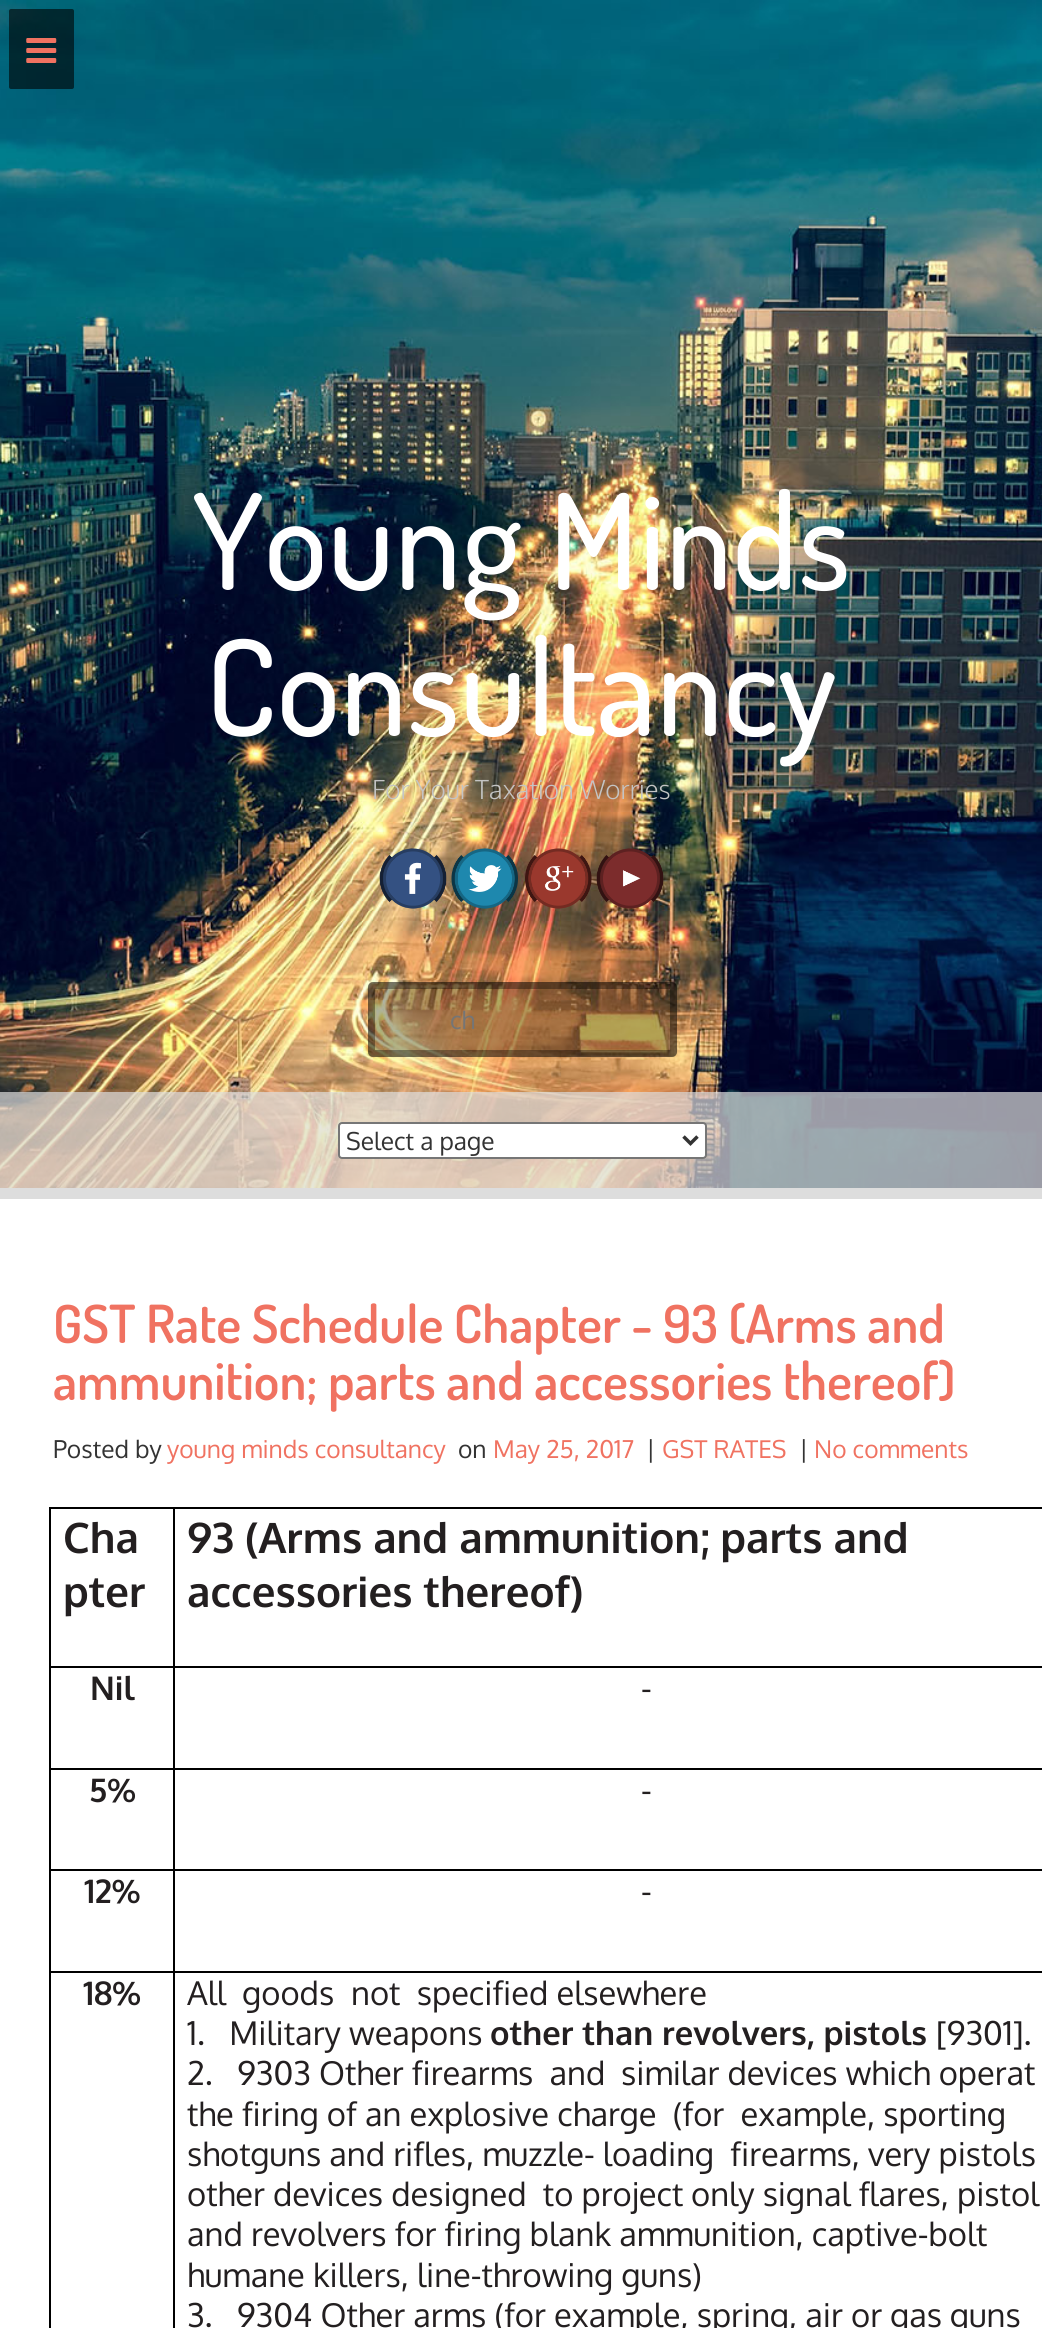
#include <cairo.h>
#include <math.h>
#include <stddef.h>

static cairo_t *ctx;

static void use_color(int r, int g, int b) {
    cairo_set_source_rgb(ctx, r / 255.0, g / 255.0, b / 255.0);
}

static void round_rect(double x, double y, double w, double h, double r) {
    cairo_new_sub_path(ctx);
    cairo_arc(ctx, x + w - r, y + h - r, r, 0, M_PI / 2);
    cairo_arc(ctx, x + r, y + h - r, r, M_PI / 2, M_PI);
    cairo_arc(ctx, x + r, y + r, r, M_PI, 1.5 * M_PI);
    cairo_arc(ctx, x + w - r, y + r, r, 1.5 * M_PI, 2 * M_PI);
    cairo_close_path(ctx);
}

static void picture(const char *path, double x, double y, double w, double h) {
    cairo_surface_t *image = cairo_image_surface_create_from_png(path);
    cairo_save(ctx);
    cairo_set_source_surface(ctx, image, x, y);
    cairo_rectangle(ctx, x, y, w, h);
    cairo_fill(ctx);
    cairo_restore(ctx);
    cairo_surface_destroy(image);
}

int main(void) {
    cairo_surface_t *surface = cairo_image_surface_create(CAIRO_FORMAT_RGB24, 1042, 2328);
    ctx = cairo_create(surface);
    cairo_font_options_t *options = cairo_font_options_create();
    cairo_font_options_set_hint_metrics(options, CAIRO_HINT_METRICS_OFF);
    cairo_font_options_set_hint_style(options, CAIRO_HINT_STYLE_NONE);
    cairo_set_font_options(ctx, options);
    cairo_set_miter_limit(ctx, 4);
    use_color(255, 255, 255);
    cairo_paint(ctx);
    picture("img2.png", 0, 0, 1042, 1188);
    cairo_set_source_rgba(ctx, 0, 0, 0, 0.6);
    round_rect(9, 9, 65, 80, 2);
    cairo_fill(ctx);
    picture("img1.png", 26, 38, 31, 25);
    cairo_select_font_face(ctx, "Dosis Medium", CAIRO_FONT_SLANT_NORMAL, CAIRO_FONT_WEIGHT_NORMAL);
    cairo_set_font_size(ctx, 133);
    use_color(255, 255, 255);
    cairo_move_to(ctx, 192, 590);
    cairo_show_text(ctx, "Young Minds");
    cairo_move_to(ctx, 206, 736);
    cairo_show_text(ctx, "Consultancy");
    cairo_select_font_face(ctx, "Oxygen Light", CAIRO_FONT_SLANT_NORMAL, CAIRO_FONT_WEIGHT_NORMAL);
    cairo_set_font_size(ctx, 26.25);
    use_color(196, 196, 196);
    cairo_move_to(ctx, 372, 799);
    cairo_show_text(ctx, "For Your Taxation Worries");
    picture("img3.png", 379, 848, 68, 61);
    picture("img4.png", 451, 848, 67, 61);
    picture("img5.png", 525, 848, 67, 61);
    picture("img6.png", 596, 848, 68, 61);
    cairo_set_source_rgba(ctx, 0, 0, 0, 0.3);
    round_rect(368, 982, 309, 75, 5);
    cairo_fill(ctx);
    round_rect(371.5, 985.5, 302, 68, 1.5);
    cairo_set_source_rgba(ctx, 0, 0, 0, 0.35);
    cairo_set_line_width(ctx, 7);
    cairo_stroke(ctx);
    cairo_select_font_face(ctx, "Oxygen", CAIRO_FONT_SLANT_NORMAL, CAIRO_FONT_WEIGHT_NORMAL);
    cairo_set_font_size(ctx, 24.5);
    use_color(117, 117, 117);
    cairo_move_to(ctx, 450, 1029);
    cairo_show_text(ctx, "ch");
    cairo_set_source_rgba(ctx, 0.867, 0.867, 0.867, 0.7);
    cairo_rectangle(ctx, 0, 1092, 1042, 96);
    cairo_fill(ctx);
    use_color(221, 221, 221);
    cairo_rectangle(ctx, 0, 1188, 1042, 11);
    cairo_fill(ctx);
    use_color(255, 255, 255);
    round_rect(339, 1123, 367, 35, 3);
    cairo_fill_preserve(ctx);
    use_color(118, 118, 118);
    cairo_set_line_width(ctx, 2);
    cairo_stroke(ctx);
    cairo_new_path(ctx);
    cairo_move_to(ctx, 683.5, 1136.5);
    cairo_line_to(ctx, 690.5, 1143.5);
    cairo_line_to(ctx, 697.5, 1136.5);
    use_color(51, 51, 51);
    cairo_set_line_width(ctx, 3.5);
    cairo_stroke(ctx);
    cairo_save(ctx);
    cairo_rectangle(ctx, 347, 1124, 330, 33);
    cairo_clip(ctx);
    cairo_move_to(ctx, 346, 1150);
    cairo_show_text(ctx, "Select a page");
    cairo_restore(ctx);
    cairo_select_font_face(ctx, "Dosis SemiBold", CAIRO_FONT_SLANT_NORMAL, CAIRO_FONT_WEIGHT_NORMAL);
    cairo_set_font_size(ctx, 52.5);
    use_color(240, 114, 97);
    cairo_move_to(ctx, 53, 1343);
    cairo_show_text(ctx, "GST Rate Schedule Chapter - 93 (Arms and");
    cairo_move_to(ctx, 53, 1400);
    cairo_show_text(ctx, "ammunition; parts and accessories thereof)");
    cairo_select_font_face(ctx, "Oxygen", CAIRO_FONT_SLANT_NORMAL, CAIRO_FONT_WEIGHT_NORMAL);
    cairo_set_font_size(ctx, 24.5);
    use_color(51, 51, 51);
    cairo_move_to(ctx, 53, 1458);
    cairo_show_text(ctx, "Posted by");
    use_color(240, 114, 97);
    cairo_move_to(ctx, 167, 1458);
    cairo_show_text(ctx, "young minds consultancy");
    use_color(51, 51, 51);
    cairo_move_to(ctx, 458, 1458);
    cairo_show_text(ctx, "on");
    use_color(240, 114, 97);
    cairo_move_to(ctx, 493, 1458);
    cairo_show_text(ctx, "May 25, 2017");
    use_color(51, 51, 51);
    cairo_move_to(ctx, 646, 1458);
    cairo_show_text(ctx, "|");
    use_color(240, 114, 97);
    cairo_move_to(ctx, 662, 1458);
    cairo_show_text(ctx, "GST RATES");
    use_color(51, 51, 51);
    cairo_move_to(ctx, 799, 1458);
    cairo_show_text(ctx, "|");
    use_color(240, 114, 97);
    cairo_move_to(ctx, 814, 1458);
    cairo_show_text(ctx, "No comments");
    use_color(0, 0, 0);
    cairo_rectangle(ctx, 173, 1507, 869, 2);
    cairo_fill(ctx);
    cairo_rectangle(ctx, 49, 1666, 126, 2);
    cairo_fill(ctx);
    cairo_rectangle(ctx, 49, 1768, 126, 2);
    cairo_fill(ctx);
    cairo_rectangle(ctx, 49, 1869, 126, 2);
    cairo_fill(ctx);
    cairo_rectangle(ctx, 49, 1971, 126, 2);
    cairo_fill(ctx);
    cairo_rectangle(ctx, 173, 1971, 2, 357);
    cairo_fill(ctx);
    cairo_rectangle(ctx, 173, 1971, 869, 2);
    cairo_fill(ctx);
    cairo_rectangle(ctx, 173, 1869, 2, 103);
    cairo_fill(ctx);
    cairo_rectangle(ctx, 173, 1869, 869, 2);
    cairo_fill(ctx);
    cairo_rectangle(ctx, 173, 1768, 2, 103);
    cairo_fill(ctx);
    cairo_rectangle(ctx, 173, 1768, 869, 2);
    cairo_fill(ctx);
    cairo_rectangle(ctx, 173, 1666, 2, 103);
    cairo_fill(ctx);
    cairo_rectangle(ctx, 173, 1666, 869, 2);
    cairo_fill(ctx);
    cairo_rectangle(ctx, 173, 1507, 2, 161);
    cairo_fill(ctx);
    cairo_rectangle(ctx, 49, 1507, 126, 2);
    cairo_fill(ctx);
    cairo_rectangle(ctx, 49, 1971, 2, 357);
    cairo_fill(ctx);
    cairo_rectangle(ctx, 49, 1869, 2, 103);
    cairo_fill(ctx);
    cairo_rectangle(ctx, 49, 1768, 2, 103);
    cairo_fill(ctx);
    cairo_rectangle(ctx, 49, 1666, 2, 103);
    cairo_fill(ctx);
    cairo_rectangle(ctx, 49, 1507, 2, 161);
    cairo_fill(ctx);
    cairo_select_font_face(ctx, "Oxygen", CAIRO_FONT_SLANT_NORMAL, CAIRO_FONT_WEIGHT_BOLD);
    cairo_set_font_size(ctx, 42);
    use_color(35, 31, 32);
    cairo_move_to(ctx, 63, 1553);
    cairo_show_text(ctx, "Cha");
    cairo_move_to(ctx, 63, 1607);
    cairo_show_text(ctx, "pter");
    cairo_move_to(ctx, 187, 1553);
    cairo_show_text(ctx, "93 (Arms and ammunition; parts and");
    cairo_move_to(ctx, 187, 1607);
    cairo_show_text(ctx, "accessories thereof)");
    cairo_set_font_size(ctx, 32.7);
    cairo_move_to(ctx, 90, 1700);
    cairo_show_text(ctx, "Nil");
    cairo_select_font_face(ctx, "Oxygen", CAIRO_FONT_SLANT_NORMAL, CAIRO_FONT_WEIGHT_NORMAL);
    cairo_move_to(ctx, 641, 1700);
    cairo_show_text(ctx, "-");
    cairo_select_font_face(ctx, "Oxygen", CAIRO_FONT_SLANT_NORMAL, CAIRO_FONT_WEIGHT_BOLD);
    cairo_move_to(ctx, 89, 1802);
    cairo_show_text(ctx, "5%");
    cairo_select_font_face(ctx, "Oxygen", CAIRO_FONT_SLANT_NORMAL, CAIRO_FONT_WEIGHT_NORMAL);
    cairo_move_to(ctx, 641, 1802);
    cairo_show_text(ctx, "-");
    cairo_select_font_face(ctx, "Oxygen", CAIRO_FONT_SLANT_NORMAL, CAIRO_FONT_WEIGHT_BOLD);
    cairo_move_to(ctx, 84, 1903);
    cairo_show_text(ctx, "12%");
    cairo_select_font_face(ctx, "Oxygen", CAIRO_FONT_SLANT_NORMAL, CAIRO_FONT_WEIGHT_NORMAL);
    cairo_move_to(ctx, 641, 1903);
    cairo_show_text(ctx, "-");
    cairo_select_font_face(ctx, "Oxygen", CAIRO_FONT_SLANT_NORMAL, CAIRO_FONT_WEIGHT_BOLD);
    cairo_move_to(ctx, 83, 2005);
    cairo_show_text(ctx, "18%");
    cairo_select_font_face(ctx, "Oxygen", CAIRO_FONT_SLANT_NORMAL, CAIRO_FONT_WEIGHT_NORMAL);
    cairo_move_to(ctx, 187, 2005);
    cairo_show_text(ctx, "All  goods");
    cairo_move_to(ctx, 351, 2005);
    cairo_show_text(ctx, "not  specified elsewhere");
    cairo_move_to(ctx, 187, 2045);
    cairo_show_text(ctx, "1.   Military weapons");
    cairo_select_font_face(ctx, "Oxygen", CAIRO_FONT_SLANT_NORMAL, CAIRO_FONT_WEIGHT_BOLD);
    cairo_move_to(ctx, 490, 2045);
    cairo_show_text(ctx, "other than revolvers, pistols");
    cairo_select_font_face(ctx, "Oxygen", CAIRO_FONT_SLANT_NORMAL, CAIRO_FONT_WEIGHT_NORMAL);
    cairo_move_to(ctx, 936, 2045);
    cairo_show_text(ctx, "[9301].");
    cairo_move_to(ctx, 187, 2085);
    cairo_show_text(ctx, "2.   9303 Other firearms  and");
    cairo_move_to(ctx, 621, 2085);
    cairo_show_text(ctx, "similar devices which operat");
    cairo_move_to(ctx, 187, 2126);
    cairo_show_text(ctx, "the firing of an explosive charge  (for  example, sporting");
    cairo_move_to(ctx, 187, 2166);
    cairo_show_text(ctx, "shotguns and rifles, muzzle- loading  firearms, very pistols");
    cairo_move_to(ctx, 187, 2206);
    cairo_show_text(ctx, "other devices designed  to project");
    cairo_move_to(ctx, 691, 2206);
    cairo_show_text(ctx, "only signal flares, pistol");
    cairo_move_to(ctx, 187, 2246);
    cairo_show_text(ctx, "and revolvers for firing blank ammunition, captive-bolt");
    cairo_move_to(ctx, 187, 2287);
    cairo_show_text(ctx, "humane killers, line-throwing guns)");
    cairo_move_to(ctx, 187, 2327);
    cairo_show_text(ctx, "3.   9304 Other arms (for example, spring, air or gas guns");
    cairo_surface_write_to_png(surface, "result.png");
    cairo_font_options_destroy(options);
    cairo_destroy(ctx);
    cairo_surface_destroy(surface);
    return 0;
}
